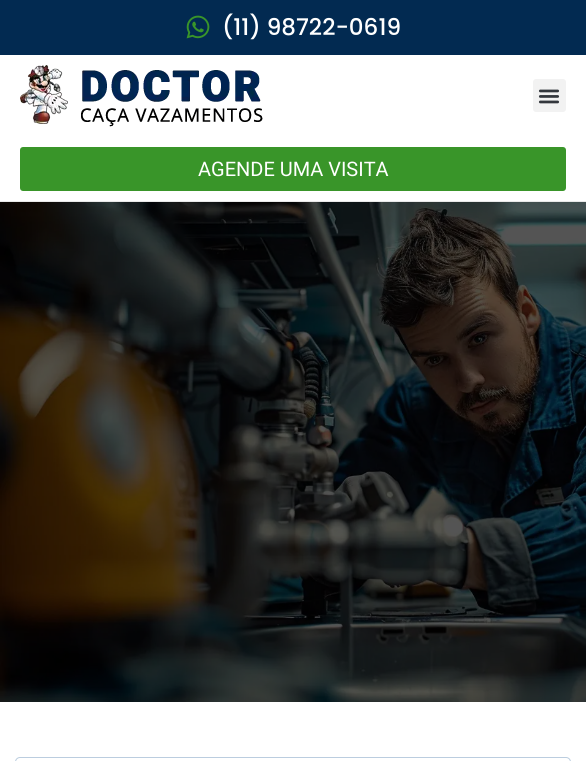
#include <cairo.h>
#include <math.h>
#include <stddef.h>

static cairo_t *ctx;

static void use_color(int r, int g, int b) {
    cairo_set_source_rgb(ctx, r / 255.0, g / 255.0, b / 255.0);
}

static void round_rect(double x, double y, double w, double h, double r) {
    cairo_new_sub_path(ctx);
    cairo_arc(ctx, x + w - r, y + h - r, r, 0, M_PI / 2);
    cairo_arc(ctx, x + r, y + h - r, r, M_PI / 2, M_PI);
    cairo_arc(ctx, x + r, y + r, r, M_PI, 1.5 * M_PI);
    cairo_arc(ctx, x + w - r, y + r, r, 1.5 * M_PI, 2 * M_PI);
    cairo_close_path(ctx);
}

static void picture(const char *path, double x, double y, double w, double h) {
    cairo_surface_t *image = cairo_image_surface_create_from_png(path);
    cairo_save(ctx);
    cairo_set_source_surface(ctx, image, x, y);
    cairo_rectangle(ctx, x, y, w, h);
    cairo_fill(ctx);
    cairo_restore(ctx);
    cairo_surface_destroy(image);
}

int main(void) {
    cairo_surface_t *surface = cairo_image_surface_create(CAIRO_FORMAT_RGB24, 586, 761);
    ctx = cairo_create(surface);
    cairo_font_options_t *options = cairo_font_options_create();
    cairo_font_options_set_hint_metrics(options, CAIRO_HINT_METRICS_OFF);
    cairo_font_options_set_hint_style(options, CAIRO_HINT_STYLE_NONE);
    cairo_set_font_options(ctx, options);
    cairo_set_miter_limit(ctx, 4);
    use_color(255, 255, 255);
    cairo_paint(ctx);
    use_color(2, 42, 81);
    cairo_rectangle(ctx, 0, 0, 586, 55);
    cairo_fill(ctx);
    picture("img1.png", 186, 15, 24, 24);
    cairo_select_font_face(ctx, "Poppins Medium", CAIRO_FONT_SLANT_NORMAL, CAIRO_FONT_WEIGHT_NORMAL);
    cairo_set_font_size(ctx, 23);
    use_color(255, 255, 255);
    cairo_move_to(ctx, 222, 35);
    cairo_show_text(ctx, "(11) 98722-0619");
    use_color(233, 233, 233);
    cairo_rectangle(ctx, 0, 201, 586, 1);
    cairo_fill(ctx);
    picture("img2.png", 20, 65, 243, 62);
    use_color(242, 242, 242);
    round_rect(533, 79, 33, 33, 3);
    cairo_fill(ctx);
    picture("img3.png", 538, 89, 22, 15);
    use_color(57, 149, 41);
    round_rect(20, 147, 546, 44, 3);
    cairo_fill(ctx);
    cairo_select_font_face(ctx, "Roboto", CAIRO_FONT_SLANT_NORMAL, CAIRO_FONT_WEIGHT_NORMAL);
    cairo_set_font_size(ctx, 20);
    use_color(255, 255, 255);
    cairo_move_to(ctx, 198, 176);
    cairo_show_text(ctx, "AGENDE UMA VISITA");
    picture("img4.png", 0, 202, 586, 500);
    round_rect(15.5, 757.5, 555, 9, 4.5);
    use_color(187, 205, 223);
    cairo_set_line_width(ctx, 1);
    cairo_stroke(ctx);
    cairo_surface_write_to_png(surface, "result.png");
    cairo_font_options_destroy(options);
    cairo_destroy(ctx);
    cairo_surface_destroy(surface);
    return 0;
}
